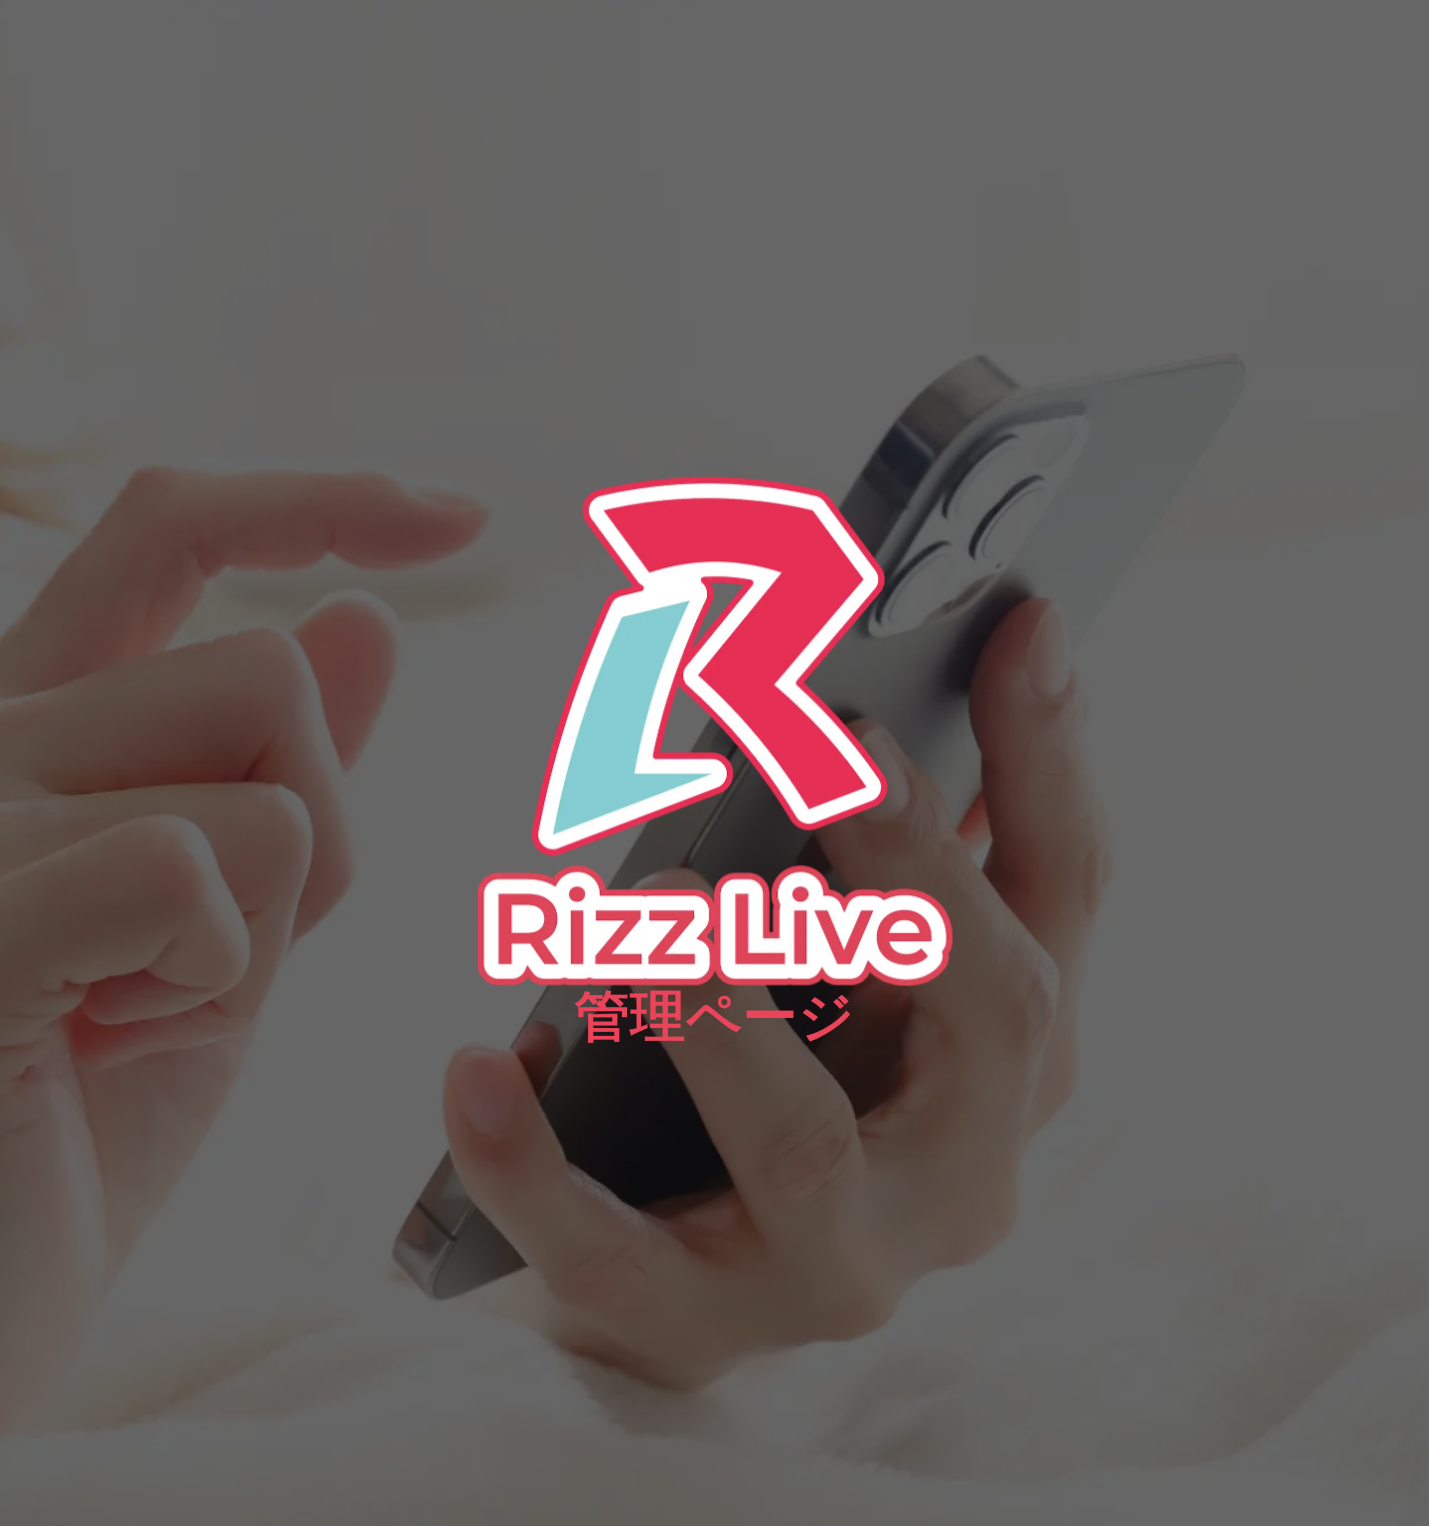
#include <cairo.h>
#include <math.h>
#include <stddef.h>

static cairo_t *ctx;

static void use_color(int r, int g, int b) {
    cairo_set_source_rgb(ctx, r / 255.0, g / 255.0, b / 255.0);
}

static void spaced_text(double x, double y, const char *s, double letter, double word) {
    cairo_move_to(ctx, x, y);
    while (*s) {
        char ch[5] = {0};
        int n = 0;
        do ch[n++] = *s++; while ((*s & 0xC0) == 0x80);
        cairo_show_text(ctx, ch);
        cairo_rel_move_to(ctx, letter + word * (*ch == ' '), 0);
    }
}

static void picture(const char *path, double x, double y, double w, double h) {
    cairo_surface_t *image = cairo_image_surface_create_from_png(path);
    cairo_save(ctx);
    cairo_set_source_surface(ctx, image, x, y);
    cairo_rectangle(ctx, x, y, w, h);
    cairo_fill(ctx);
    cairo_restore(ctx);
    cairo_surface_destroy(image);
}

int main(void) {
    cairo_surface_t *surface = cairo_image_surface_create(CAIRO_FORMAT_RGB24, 1429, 1526);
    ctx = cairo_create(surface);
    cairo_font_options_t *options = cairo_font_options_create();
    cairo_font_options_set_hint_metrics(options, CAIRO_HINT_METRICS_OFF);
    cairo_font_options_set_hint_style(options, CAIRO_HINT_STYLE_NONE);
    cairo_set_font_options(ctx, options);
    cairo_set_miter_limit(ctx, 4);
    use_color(255, 255, 255);
    cairo_paint(ctx);
    picture("img1.png", 0, 0, 1429, 1526);
    picture("img2.png", 478, 476, 475, 510);
    cairo_select_font_face(ctx, "WenQuanYi Zen Hei", CAIRO_FONT_SLANT_NORMAL, CAIRO_FONT_WEIGHT_BOLD);
    cairo_set_font_size(ctx, 55);
    use_color(235, 68, 90);
    spaced_text(574, 1036, "管理ページ", 0.5, 0);
    cairo_surface_write_to_png(surface, "result.png");
    cairo_font_options_destroy(options);
    cairo_destroy(ctx);
    cairo_surface_destroy(surface);
    return 0;
}
